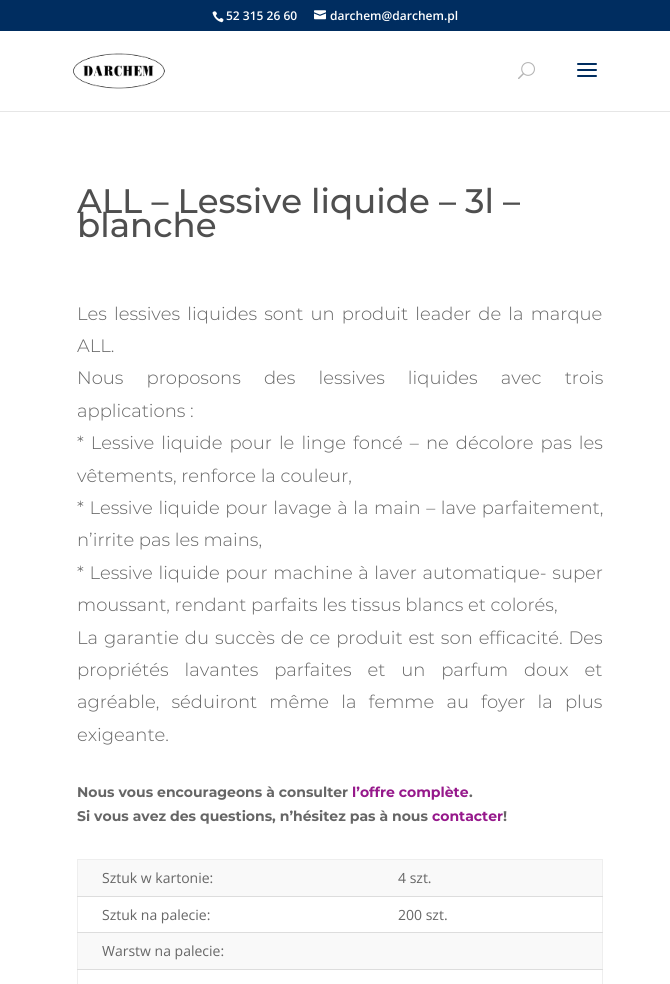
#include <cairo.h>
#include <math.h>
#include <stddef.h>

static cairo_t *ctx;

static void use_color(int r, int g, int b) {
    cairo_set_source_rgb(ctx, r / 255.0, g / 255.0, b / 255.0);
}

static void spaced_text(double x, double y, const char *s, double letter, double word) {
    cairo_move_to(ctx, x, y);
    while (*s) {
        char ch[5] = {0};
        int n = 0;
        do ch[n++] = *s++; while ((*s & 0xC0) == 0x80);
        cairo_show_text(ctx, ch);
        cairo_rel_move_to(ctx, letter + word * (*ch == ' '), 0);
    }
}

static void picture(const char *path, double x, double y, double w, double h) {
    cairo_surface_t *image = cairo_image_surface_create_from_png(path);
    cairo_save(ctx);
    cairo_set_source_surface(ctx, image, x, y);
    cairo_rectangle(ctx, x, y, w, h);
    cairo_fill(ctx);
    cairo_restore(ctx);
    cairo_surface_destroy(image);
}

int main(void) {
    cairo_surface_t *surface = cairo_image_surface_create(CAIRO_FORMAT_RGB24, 670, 984);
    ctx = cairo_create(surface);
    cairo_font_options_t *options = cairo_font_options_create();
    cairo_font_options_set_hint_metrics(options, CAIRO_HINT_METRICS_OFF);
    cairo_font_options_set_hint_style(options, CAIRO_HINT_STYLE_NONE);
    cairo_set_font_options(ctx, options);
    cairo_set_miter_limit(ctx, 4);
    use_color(255, 255, 255);
    cairo_paint(ctx);
    use_color(0, 45, 96);
    cairo_rectangle(ctx, 0, 0, 670, 31);
    cairo_fill(ctx);
    picture("img1.png", 212, 11, 12, 12);
    cairo_select_font_face(ctx, "Open Sans SemiBold", CAIRO_FONT_SLANT_NORMAL, CAIRO_FONT_WEIGHT_NORMAL);
    cairo_set_font_size(ctx, 12);
    use_color(255, 255, 255);
    cairo_move_to(ctx, 226, 20);
    cairo_show_text(ctx, "52 315 26 60");
    picture("img2.png", 314, 10, 12, 10);
    cairo_move_to(ctx, 330, 20);
    cairo_show_text(ctx, "darchem@darchem.pl");
    use_color(230, 230, 230);
    cairo_rectangle(ctx, 0, 111, 670, 1);
    cairo_fill(ctx);
    picture("img3.png", 73, 53, 92, 36);
    picture("img4.png", 518, 62, 17, 17);
    picture("img5.png", 577, 63, 20, 14);
    cairo_select_font_face(ctx, "Montserrat Medium", CAIRO_FONT_SLANT_NORMAL, CAIRO_FONT_WEIGHT_NORMAL);
    cairo_set_font_size(ctx, 34);
    use_color(79, 79, 79);
    cairo_move_to(ctx, 77, 213);
    cairo_show_text(ctx, "ALL – Lessive liquide – 3l –");
    cairo_move_to(ctx, 77, 237);
    cairo_show_text(ctx, "blanche");
    cairo_select_font_face(ctx, "Montserrat Light", CAIRO_FONT_SLANT_NORMAL, CAIRO_FONT_WEIGHT_NORMAL);
    cairo_set_font_size(ctx, 18);
    use_color(102, 102, 102);
    spaced_text(77, 320, "Les lessives liquides sont un produit leader de la marque", 0, 2.5);
    cairo_move_to(ctx, 77, 352);
    cairo_show_text(ctx, "ALL.");
    spaced_text(77, 384, "Nous proposons des lessives liquides avec trois", 0, 18.5);
    cairo_move_to(ctx, 77, 417);
    cairo_show_text(ctx, "applications :");
    spaced_text(77, 449, "* Lessive liquide pour le linge foncé – ne décolore pas les", 0, 2.4);
    cairo_move_to(ctx, 77, 482);
    cairo_show_text(ctx, "vêtements, renforce la couleur,");
    spaced_text(77, 514, "* Lessive liquide pour lavage à la main – lave parfaitement,", 0, 1);
    cairo_move_to(ctx, 77, 546);
    cairo_show_text(ctx, "n’irrite pas les mains,");
    spaced_text(77, 579, "* Lessive liquide pour machine à laver automatique- super", 0, 1);
    cairo_move_to(ctx, 77, 611);
    cairo_show_text(ctx, "moussant, rendant parfaits les tissus blancs et colorés,");
    spaced_text(77, 644, "La garantie du succès de ce produit est son efficacité. Des", 0, 1.25);
    spaced_text(77, 676, "propriétés lavantes parfaites et un parfum doux et", 0, 11.25);
    spaced_text(77, 708, "agréable, séduiront même la femme au foyer la plus", 0, 7.5);
    cairo_move_to(ctx, 77, 741);
    cairo_show_text(ctx, "exigeante.");
    cairo_select_font_face(ctx, "Montserrat", CAIRO_FONT_SLANT_NORMAL, CAIRO_FONT_WEIGHT_BOLD);
    cairo_set_font_size(ctx, 14);
    cairo_move_to(ctx, 77, 797);
    cairo_show_text(ctx, "Nous vous encourageons à consulter");
    use_color(150, 24, 139);
    cairo_move_to(ctx, 352, 797);
    cairo_show_text(ctx, "l’offre complète");
    use_color(102, 102, 102);
    cairo_move_to(ctx, 469, 797);
    cairo_show_text(ctx, ".");
    cairo_move_to(ctx, 77, 821);
    cairo_show_text(ctx, "Si vous avez des questions, n’hésitez pas à nous");
    use_color(150, 24, 139);
    cairo_move_to(ctx, 432, 821);
    cairo_show_text(ctx, "contacter");
    use_color(102, 102, 102);
    cairo_move_to(ctx, 503, 821);
    cairo_show_text(ctx, "!");
    use_color(238, 238, 238);
    cairo_rectangle(ctx, 77, 859, 526, 1);
    cairo_fill(ctx);
    cairo_rectangle(ctx, 602, 859, 1, 125);
    cairo_fill(ctx);
    cairo_rectangle(ctx, 77, 859, 1, 125);
    cairo_fill(ctx);
    use_color(249, 249, 249);
    cairo_rectangle(ctx, 78, 860, 524, 36);
    cairo_fill(ctx);
    cairo_select_font_face(ctx, "Open Sans", CAIRO_FONT_SLANT_NORMAL, CAIRO_FONT_WEIGHT_NORMAL);
    use_color(102, 102, 102);
    cairo_move_to(ctx, 102, 883);
    cairo_show_text(ctx, "Sztuk w kartonie:");
    cairo_move_to(ctx, 398, 883);
    cairo_show_text(ctx, "4 szt.");
    cairo_move_to(ctx, 102, 920);
    cairo_show_text(ctx, "Sztuk na palecie:");
    use_color(221, 221, 221);
    cairo_rectangle(ctx, 77, 896, 526, 1);
    cairo_fill(ctx);
    use_color(102, 102, 102);
    cairo_move_to(ctx, 398, 920);
    cairo_show_text(ctx, "200 szt.");
    use_color(221, 221, 221);
    cairo_rectangle(ctx, 77, 932, 526, 1);
    cairo_fill(ctx);
    use_color(249, 249, 249);
    cairo_rectangle(ctx, 78, 933, 524, 36);
    cairo_fill(ctx);
    use_color(102, 102, 102);
    cairo_move_to(ctx, 102, 956);
    cairo_show_text(ctx, "Warstw na palecie:");
    use_color(221, 221, 221);
    cairo_rectangle(ctx, 77, 969, 526, 1);
    cairo_fill(ctx);
    cairo_surface_write_to_png(surface, "result.png");
    cairo_font_options_destroy(options);
    cairo_destroy(ctx);
    cairo_surface_destroy(surface);
    return 0;
}
